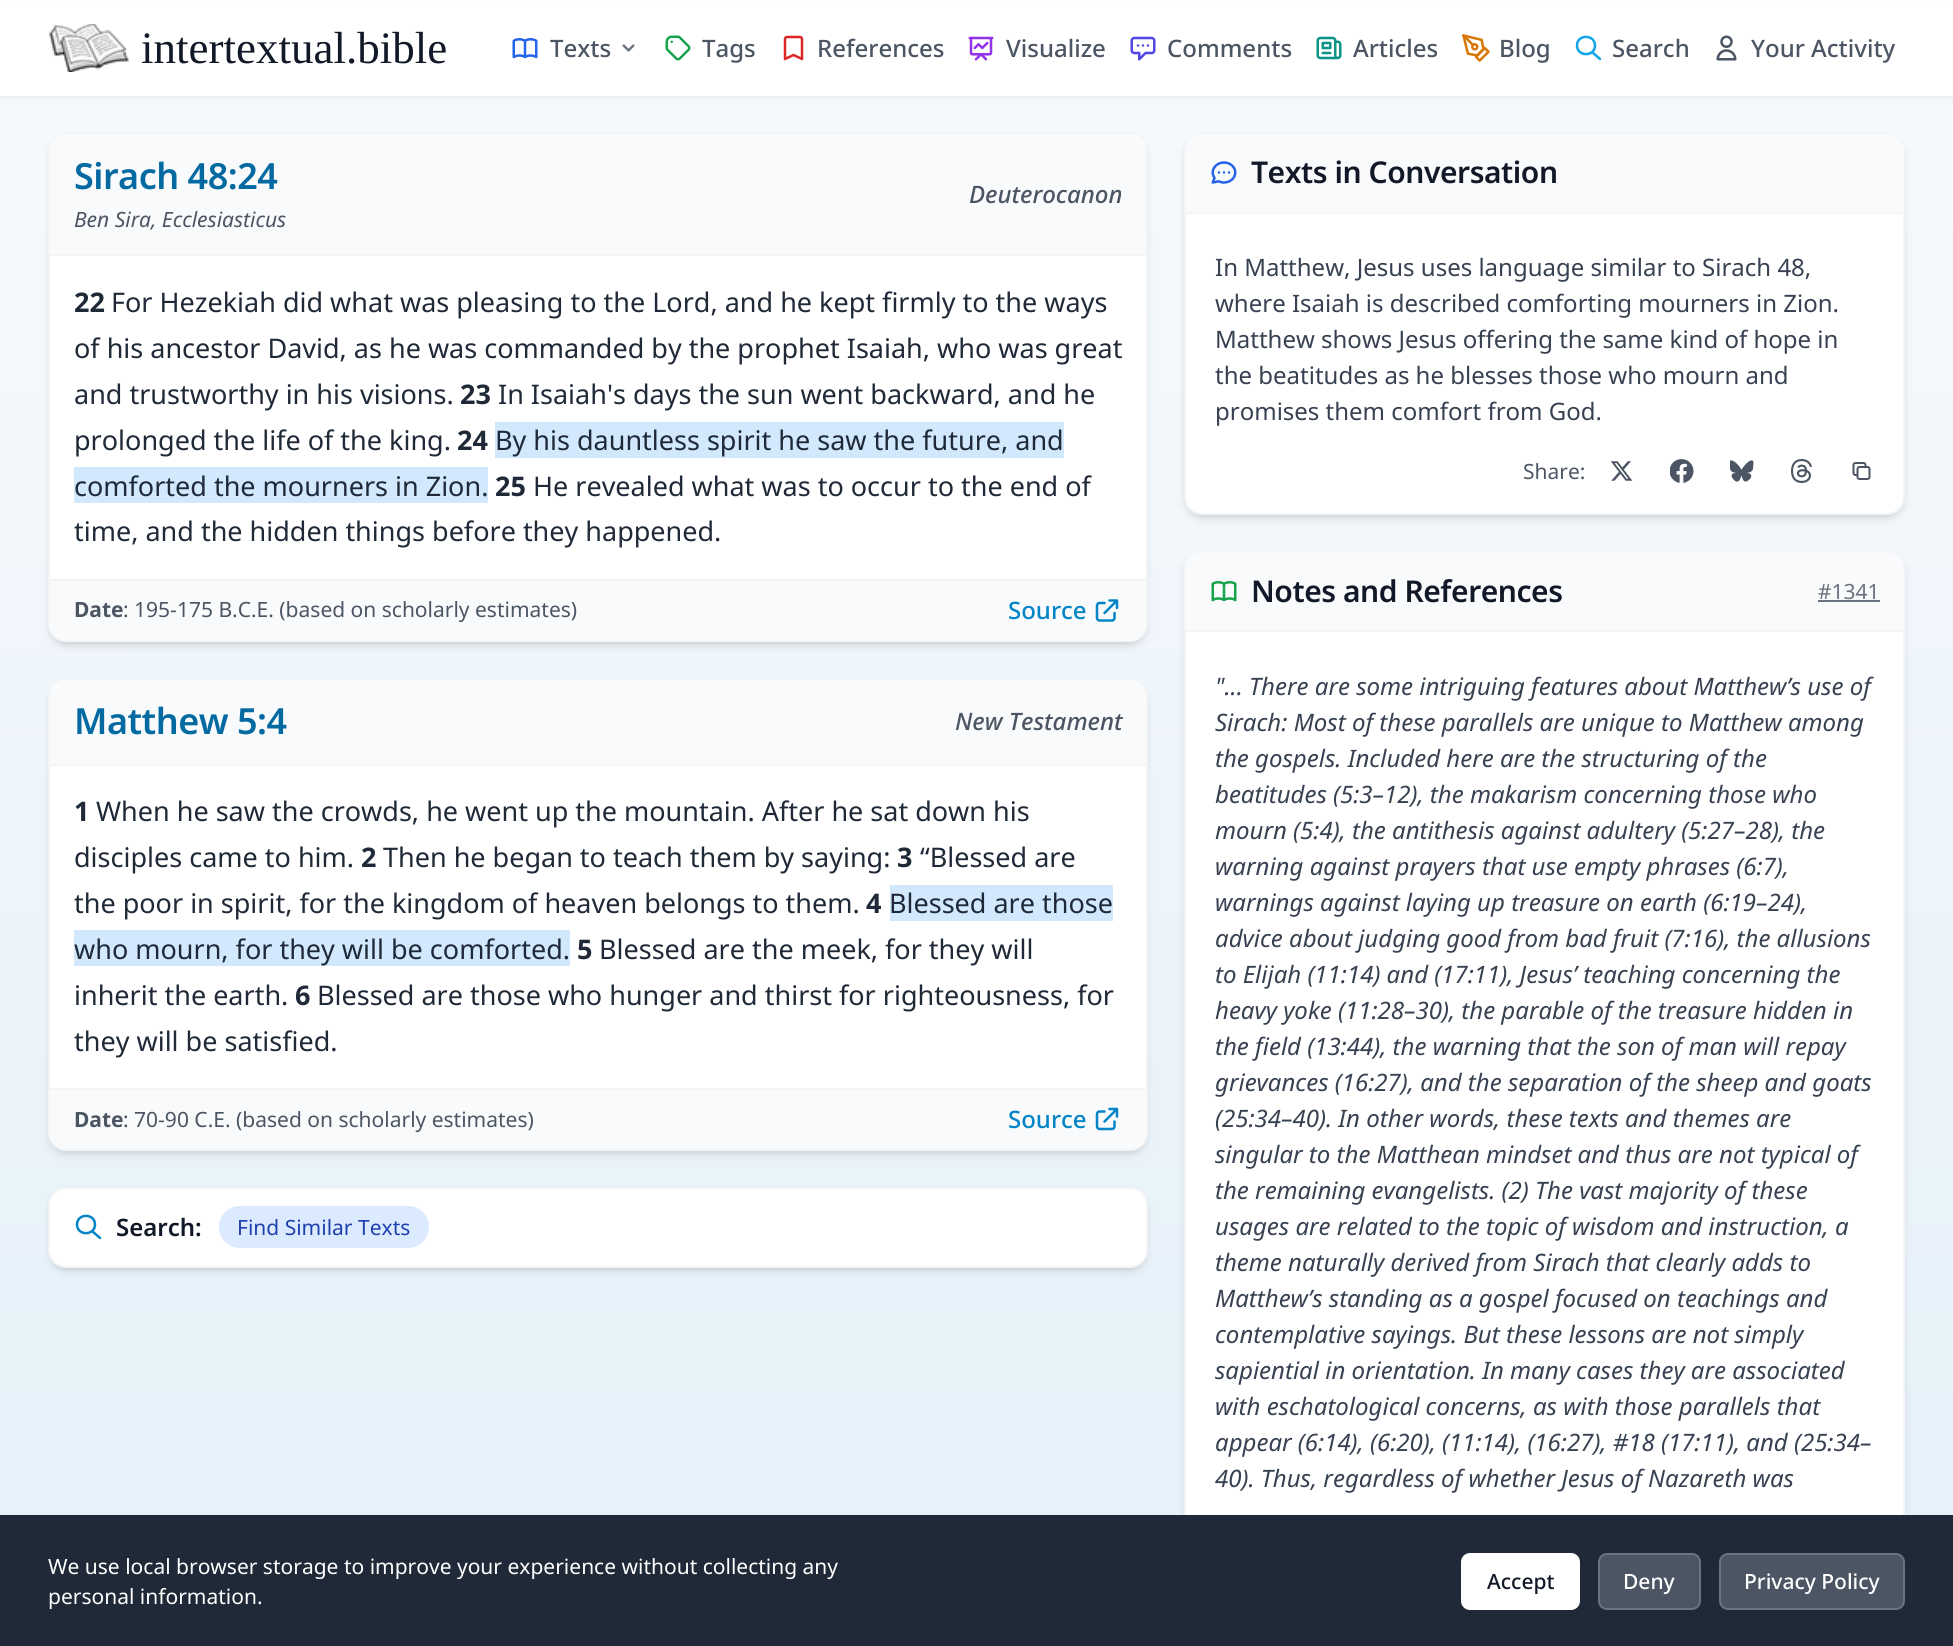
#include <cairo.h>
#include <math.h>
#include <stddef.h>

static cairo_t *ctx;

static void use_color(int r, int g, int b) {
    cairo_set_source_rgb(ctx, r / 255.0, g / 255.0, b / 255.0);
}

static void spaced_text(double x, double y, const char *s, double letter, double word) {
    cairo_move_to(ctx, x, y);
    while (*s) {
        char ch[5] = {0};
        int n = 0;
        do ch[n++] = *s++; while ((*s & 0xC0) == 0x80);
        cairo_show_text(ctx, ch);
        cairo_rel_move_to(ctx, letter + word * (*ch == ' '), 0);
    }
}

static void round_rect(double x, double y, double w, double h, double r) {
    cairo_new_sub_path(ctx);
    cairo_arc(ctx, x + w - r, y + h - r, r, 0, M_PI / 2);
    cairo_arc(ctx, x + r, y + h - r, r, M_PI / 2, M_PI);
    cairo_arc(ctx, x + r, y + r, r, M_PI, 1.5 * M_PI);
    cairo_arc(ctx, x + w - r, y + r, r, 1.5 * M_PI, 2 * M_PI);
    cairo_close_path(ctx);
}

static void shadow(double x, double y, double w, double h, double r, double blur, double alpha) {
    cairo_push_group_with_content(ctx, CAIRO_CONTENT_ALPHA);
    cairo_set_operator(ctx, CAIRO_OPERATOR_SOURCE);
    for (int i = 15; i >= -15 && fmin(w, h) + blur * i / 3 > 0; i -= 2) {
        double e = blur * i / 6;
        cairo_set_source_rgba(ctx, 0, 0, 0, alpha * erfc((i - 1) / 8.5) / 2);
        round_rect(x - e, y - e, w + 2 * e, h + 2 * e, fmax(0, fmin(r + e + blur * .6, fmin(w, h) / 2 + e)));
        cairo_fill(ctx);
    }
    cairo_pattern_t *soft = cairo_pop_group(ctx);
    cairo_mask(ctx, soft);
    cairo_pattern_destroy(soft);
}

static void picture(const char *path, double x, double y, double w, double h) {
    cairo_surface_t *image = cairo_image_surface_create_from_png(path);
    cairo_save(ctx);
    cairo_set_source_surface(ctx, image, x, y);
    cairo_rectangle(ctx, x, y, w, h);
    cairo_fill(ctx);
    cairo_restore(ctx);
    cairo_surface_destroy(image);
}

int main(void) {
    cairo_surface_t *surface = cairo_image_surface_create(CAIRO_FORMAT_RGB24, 1953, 1646);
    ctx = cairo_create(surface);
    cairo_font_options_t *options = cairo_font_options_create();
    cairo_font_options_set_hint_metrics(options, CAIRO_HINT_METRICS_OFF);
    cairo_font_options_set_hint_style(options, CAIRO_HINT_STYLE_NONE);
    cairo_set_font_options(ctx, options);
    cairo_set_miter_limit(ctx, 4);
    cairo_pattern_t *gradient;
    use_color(255, 255, 255);
    cairo_paint(ctx);
    gradient = cairo_pattern_create_linear(976, 0, 977, 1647);
    cairo_pattern_add_color_stop_rgba(gradient, 0, 0.969, 0.98, 0.988, 1);
    cairo_pattern_add_color_stop_rgba(gradient, 1, 0.894, 0.941, 0.976, 1);
    cairo_set_source(ctx, gradient);
    cairo_pattern_destroy(gradient);
    cairo_rectangle(ctx, 0, 96, 1953, 1419);
    cairo_fill(ctx);
    use_color(0, 0, 0);
    shadow(0, 2, 1953, 96, 0, 1.5, 0.05);
    use_color(255, 255, 255);
    cairo_rectangle(ctx, 0, 1, 1953, 95);
    cairo_fill(ctx);
    picture("img1.png", 48, 24, 81, 48);
    cairo_select_font_face(ctx, "Liberation Serif", CAIRO_FONT_SLANT_NORMAL, CAIRO_FONT_WEIGHT_NORMAL);
    cairo_set_font_size(ctx, 45);
    use_color(17, 24, 39);
    cairo_move_to(ctx, 141, 63);
    cairo_show_text(ctx, "intertextual.bible");
    picture("img2.png", 512, 38, 26, 21);
    cairo_select_font_face(ctx, "Noto Sans Medium", CAIRO_FONT_SLANT_NORMAL, CAIRO_FONT_WEIGHT_NORMAL);
    cairo_set_font_size(ctx, 24);
    use_color(75, 85, 99);
    cairo_move_to(ctx, 550, 57);
    cairo_show_text(ctx, "Texts");
    picture("img3.png", 622, 44, 13, 8);
    picture("img4.png", 665, 35, 26, 26);
    cairo_move_to(ctx, 702, 57);
    cairo_show_text(ctx, "Tags");
    cairo_new_path(ctx);
    cairo_move_to(ctx, 785, 39);
    cairo_curve_to(ctx, 785, 38, 786, 37, 787, 37);
    cairo_line_to(ctx, 800, 37);
    cairo_curve_to(ctx, 801, 37, 802, 38, 802, 39);
    cairo_line_to(ctx, 802, 59);
    cairo_line_to(ctx, 793.5, 55);
    cairo_line_to(ctx, 785, 59);
    cairo_close_path(ctx);
    use_color(220, 38, 38);
    cairo_set_line_width(ctx, 2.5);
    cairo_set_line_cap(ctx, CAIRO_LINE_CAP_ROUND);
    cairo_set_line_join(ctx, CAIRO_LINE_JOIN_ROUND);
    cairo_stroke(ctx);
    use_color(75, 85, 99);
    cairo_move_to(ctx, 817, 57);
    cairo_show_text(ctx, "References");
    picture("img5.png", 968, 36, 26, 25);
    cairo_move_to(ctx, 1006, 57);
    cairo_show_text(ctx, "Visualize");
    picture("img6.png", 1130, 36, 26, 25);
    cairo_move_to(ctx, 1167, 57);
    cairo_show_text(ctx, "Comments");
    picture("img7.png", 1316, 36, 26, 24);
    cairo_move_to(ctx, 1353, 57);
    cairo_show_text(ctx, "Articles");
    picture("img8.png", 1462, 34, 28, 28);
    cairo_move_to(ctx, 1499, 57);
    cairo_show_text(ctx, "Blog");
    cairo_new_path(ctx);
    cairo_move_to(ctx, 1600, 59);
    cairo_line_to(ctx, 1592, 52);
    cairo_move_to(ctx, 1595, 45.5);
    cairo_curve_to(ctx, 1595, 57, 1577, 57, 1577, 45.5);
    cairo_curve_to(ctx, 1577, 34, 1595, 34, 1595, 45.5);
    cairo_close_path(ctx);
    use_color(14, 165, 233);
    cairo_stroke(ctx);
    use_color(75, 85, 99);
    cairo_move_to(ctx, 1612, 57);
    cairo_show_text(ctx, "Search");
    picture("img9.png", 1716, 35, 21, 26);
    cairo_move_to(ctx, 1751, 57);
    cairo_show_text(ctx, "Your Activity");
    use_color(0, 0, 0);
    shadow(51, 138, 1094, 504, 15, 3, 0.1);
    shadow(50, 140, 1096, 507, 17, 4.5, 0.1);
    use_color(255, 255, 255);
    round_rect(49, 133, 1098, 508, 17);
    cairo_fill_preserve(ctx);
    use_color(243, 244, 246);
    cairo_set_line_width(ctx, 2);
    cairo_set_line_cap(ctx, CAIRO_LINE_CAP_BUTT);
    cairo_set_line_join(ctx, CAIRO_LINE_JOIN_MITER);
    cairo_stroke(ctx);
    use_color(249, 250, 251);
    cairo_new_path(ctx);
    cairo_move_to(ctx, 67, 134);
    cairo_line_to(ctx, 1129, 134);
    cairo_curve_to(ctx, 1138.5, 134, 1146, 141.5, 1146, 151);
    cairo_line_to(ctx, 1146, 254);
    cairo_line_to(ctx, 50, 254);
    cairo_line_to(ctx, 50, 151);
    cairo_curve_to(ctx, 50, 141.5, 57.5, 134, 67, 134);
    cairo_close_path(ctx);
    cairo_fill(ctx);
    use_color(243, 244, 246);
    cairo_rectangle(ctx, 50, 254, 1096, 2);
    cairo_fill(ctx);
    cairo_select_font_face(ctx, "Noto Sans SemiBold", CAIRO_FONT_SLANT_NORMAL, CAIRO_FONT_WEIGHT_NORMAL);
    cairo_set_font_size(ctx, 36);
    use_color(3, 105, 161);
    spaced_text(74, 189, "Sirach 48:24", -0.5, 0);
    cairo_select_font_face(ctx, "Noto Sans", CAIRO_FONT_SLANT_ITALIC, CAIRO_FONT_WEIGHT_NORMAL);
    cairo_set_font_size(ctx, 21);
    use_color(75, 85, 99);
    cairo_move_to(ctx, 74, 227);
    cairo_show_text(ctx, "Ben Sira, Ecclesiasticus");
    cairo_select_font_face(ctx, "Noto Sans Medium", CAIRO_FONT_SLANT_ITALIC, CAIRO_FONT_WEIGHT_NORMAL);
    cairo_set_font_size(ctx, 24);
    cairo_move_to(ctx, 969, 203);
    cairo_show_text(ctx, "Deuterocanon");
    cairo_select_font_face(ctx, "Noto Sans", CAIRO_FONT_SLANT_NORMAL, CAIRO_FONT_WEIGHT_BOLD);
    cairo_set_font_size(ctx, 27);
    use_color(31, 41, 55);
    cairo_move_to(ctx, 74, 312);
    cairo_show_text(ctx, "22");
    cairo_select_font_face(ctx, "Noto Sans", CAIRO_FONT_SLANT_NORMAL, CAIRO_FONT_WEIGHT_NORMAL);
    cairo_move_to(ctx, 111, 312);
    cairo_show_text(ctx, "For Hezekiah did what was pleasing to the Lord, and he kept firmly to the ways");
    cairo_move_to(ctx, 74, 358);
    cairo_show_text(ctx, "of his ancestor David, as he was commanded by the prophet Isaiah, who was great");
    cairo_move_to(ctx, 74, 404);
    cairo_show_text(ctx, "and trustworthy in his visions.");
    cairo_select_font_face(ctx, "Noto Sans", CAIRO_FONT_SLANT_NORMAL, CAIRO_FONT_WEIGHT_BOLD);
    cairo_move_to(ctx, 460, 404);
    cairo_show_text(ctx, "23");
    cairo_select_font_face(ctx, "Noto Sans", CAIRO_FONT_SLANT_NORMAL, CAIRO_FONT_WEIGHT_NORMAL);
    cairo_move_to(ctx, 498, 404);
    cairo_show_text(ctx, "In Isaiah's days the sun went backward, and he");
    cairo_move_to(ctx, 74, 450);
    cairo_show_text(ctx, "prolonged the life of the king.");
    cairo_select_font_face(ctx, "Noto Sans", CAIRO_FONT_SLANT_NORMAL, CAIRO_FONT_WEIGHT_BOLD);
    cairo_move_to(ctx, 457, 450);
    cairo_show_text(ctx, "24");
    use_color(209, 232, 253);
    cairo_rectangle(ctx, 495, 422, 569, 36);
    cairo_fill(ctx);
    cairo_select_font_face(ctx, "Noto Sans", CAIRO_FONT_SLANT_NORMAL, CAIRO_FONT_WEIGHT_NORMAL);
    use_color(31, 41, 55);
    cairo_move_to(ctx, 495, 450);
    cairo_show_text(ctx, "By his dauntless spirit he saw the future, and");
    use_color(209, 232, 253);
    cairo_rectangle(ctx, 74, 467, 414, 36);
    cairo_fill(ctx);
    use_color(31, 41, 55);
    cairo_move_to(ctx, 74, 496);
    cairo_show_text(ctx, "comforted the mourners in Zion.");
    cairo_select_font_face(ctx, "Noto Sans", CAIRO_FONT_SLANT_NORMAL, CAIRO_FONT_WEIGHT_BOLD);
    cairo_move_to(ctx, 495, 496);
    cairo_show_text(ctx, "25");
    cairo_select_font_face(ctx, "Noto Sans", CAIRO_FONT_SLANT_NORMAL, CAIRO_FONT_WEIGHT_NORMAL);
    cairo_move_to(ctx, 533, 496);
    cairo_show_text(ctx, "He revealed what was to occur to the end of");
    cairo_move_to(ctx, 74, 541);
    cairo_show_text(ctx, "time, and the hidden things before they happened.");
    use_color(249, 250, 251);
    cairo_new_path(ctx);
    cairo_move_to(ctx, 50, 581);
    cairo_line_to(ctx, 1146, 581);
    cairo_line_to(ctx, 1146, 624);
    cairo_curve_to(ctx, 1146, 633.5, 1138.5, 641, 1129, 641);
    cairo_line_to(ctx, 67, 641);
    cairo_curve_to(ctx, 57.5, 641, 50, 633.5, 50, 624);
    cairo_close_path(ctx);
    cairo_fill(ctx);
    use_color(243, 244, 246);
    cairo_rectangle(ctx, 50, 579, 1096, 2);
    cairo_fill(ctx);
    cairo_select_font_face(ctx, "Noto Sans", CAIRO_FONT_SLANT_NORMAL, CAIRO_FONT_WEIGHT_BOLD);
    cairo_set_font_size(ctx, 21);
    use_color(75, 85, 99);
    cairo_move_to(ctx, 74, 617);
    cairo_show_text(ctx, "Date");
    cairo_select_font_face(ctx, "Noto Sans", CAIRO_FONT_SLANT_NORMAL, CAIRO_FONT_WEIGHT_NORMAL);
    cairo_move_to(ctx, 123, 617);
    cairo_show_text(ctx, ": 195-175 B.C.E. (based on scholarly estimates)");
    cairo_select_font_face(ctx, "Noto Sans Medium", CAIRO_FONT_SLANT_NORMAL, CAIRO_FONT_WEIGHT_NORMAL);
    cairo_set_font_size(ctx, 24);
    use_color(2, 132, 199);
    cairo_move_to(ctx, 1008, 619);
    cairo_show_text(ctx, "Source");
    picture("img10.png", 1095, 599, 24, 23);
    use_color(0, 0, 0);
    shadow(51, 684, 1094, 467, 15, 3, 0.1);
    shadow(50, 686, 1096, 469, 17, 4.5, 0.1);
    use_color(255, 255, 255);
    round_rect(49, 679, 1098, 471, 17);
    cairo_fill_preserve(ctx);
    use_color(243, 244, 246);
    cairo_stroke(ctx);
    use_color(249, 250, 251);
    cairo_new_path(ctx);
    cairo_move_to(ctx, 67, 680);
    cairo_line_to(ctx, 1129, 680);
    cairo_curve_to(ctx, 1138.5, 680, 1146, 687.5, 1146, 697);
    cairo_line_to(ctx, 1146, 764);
    cairo_line_to(ctx, 50, 764);
    cairo_line_to(ctx, 50, 697);
    cairo_curve_to(ctx, 50, 687.5, 57.5, 680, 67, 680);
    cairo_close_path(ctx);
    cairo_fill(ctx);
    use_color(243, 244, 246);
    cairo_rectangle(ctx, 50, 764, 1096, 2);
    cairo_fill(ctx);
    cairo_select_font_face(ctx, "Noto Sans SemiBold", CAIRO_FONT_SLANT_NORMAL, CAIRO_FONT_WEIGHT_NORMAL);
    cairo_set_font_size(ctx, 36);
    use_color(3, 105, 161);
    spaced_text(74, 734, "Matthew 5:4", -0.5, 0);
    cairo_select_font_face(ctx, "Noto Sans Medium", CAIRO_FONT_SLANT_ITALIC, CAIRO_FONT_WEIGHT_NORMAL);
    cairo_set_font_size(ctx, 24);
    use_color(75, 85, 99);
    cairo_move_to(ctx, 955, 730);
    cairo_show_text(ctx, "New Testament");
    cairo_select_font_face(ctx, "Noto Sans", CAIRO_FONT_SLANT_NORMAL, CAIRO_FONT_WEIGHT_BOLD);
    cairo_set_font_size(ctx, 27);
    use_color(31, 41, 55);
    cairo_move_to(ctx, 74, 821);
    cairo_show_text(ctx, "1");
    cairo_select_font_face(ctx, "Noto Sans", CAIRO_FONT_SLANT_NORMAL, CAIRO_FONT_WEIGHT_NORMAL);
    cairo_move_to(ctx, 96, 821);
    cairo_show_text(ctx, "When he saw the crowds, he went up the mountain. After he sat down his");
    cairo_move_to(ctx, 74, 867);
    cairo_show_text(ctx, "disciples came to him.");
    cairo_select_font_face(ctx, "Noto Sans", CAIRO_FONT_SLANT_NORMAL, CAIRO_FONT_WEIGHT_BOLD);
    cairo_move_to(ctx, 361, 867);
    cairo_show_text(ctx, "2");
    cairo_select_font_face(ctx, "Noto Sans", CAIRO_FONT_SLANT_NORMAL, CAIRO_FONT_WEIGHT_NORMAL);
    cairo_move_to(ctx, 383, 867);
    cairo_show_text(ctx, "Then he began to teach them by saying:");
    cairo_select_font_face(ctx, "Noto Sans", CAIRO_FONT_SLANT_NORMAL, CAIRO_FONT_WEIGHT_BOLD);
    cairo_move_to(ctx, 897, 867);
    cairo_show_text(ctx, "3");
    cairo_select_font_face(ctx, "Noto Sans", CAIRO_FONT_SLANT_NORMAL, CAIRO_FONT_WEIGHT_NORMAL);
    cairo_move_to(ctx, 920, 867);
    cairo_show_text(ctx, "“Blessed are");
    cairo_move_to(ctx, 74, 913);
    cairo_show_text(ctx, "the poor in spirit, for the kingdom of heaven belongs to them.");
    cairo_select_font_face(ctx, "Noto Sans", CAIRO_FONT_SLANT_NORMAL, CAIRO_FONT_WEIGHT_BOLD);
    cairo_move_to(ctx, 866, 913);
    cairo_show_text(ctx, "4");
    use_color(209, 232, 253);
    cairo_rectangle(ctx, 890, 885, 223, 36);
    cairo_fill(ctx);
    cairo_select_font_face(ctx, "Noto Sans", CAIRO_FONT_SLANT_NORMAL, CAIRO_FONT_WEIGHT_NORMAL);
    use_color(31, 41, 55);
    cairo_move_to(ctx, 889, 913);
    cairo_show_text(ctx, "Blessed are those");
    use_color(209, 232, 253);
    cairo_rectangle(ctx, 74, 930, 496, 36);
    cairo_fill(ctx);
    use_color(31, 41, 55);
    cairo_move_to(ctx, 74, 959);
    cairo_show_text(ctx, "who mourn, for they will be comforted.");
    cairo_select_font_face(ctx, "Noto Sans", CAIRO_FONT_SLANT_NORMAL, CAIRO_FONT_WEIGHT_BOLD);
    cairo_move_to(ctx, 577, 959);
    cairo_show_text(ctx, "5");
    cairo_select_font_face(ctx, "Noto Sans", CAIRO_FONT_SLANT_NORMAL, CAIRO_FONT_WEIGHT_NORMAL);
    cairo_move_to(ctx, 599, 959);
    cairo_show_text(ctx, "Blessed are the meek, for they will");
    cairo_move_to(ctx, 74, 1005);
    cairo_show_text(ctx, "inherit the earth.");
    cairo_select_font_face(ctx, "Noto Sans", CAIRO_FONT_SLANT_NORMAL, CAIRO_FONT_WEIGHT_BOLD);
    cairo_move_to(ctx, 295, 1005);
    cairo_show_text(ctx, "6");
    cairo_select_font_face(ctx, "Noto Sans", CAIRO_FONT_SLANT_NORMAL, CAIRO_FONT_WEIGHT_NORMAL);
    cairo_move_to(ctx, 317, 1005);
    cairo_show_text(ctx, "Blessed are those who hunger and thirst for righteousness, for");
    cairo_move_to(ctx, 74, 1051);
    cairo_show_text(ctx, "they will be satisfied.");
    use_color(249, 250, 251);
    cairo_new_path(ctx);
    cairo_move_to(ctx, 50, 1089);
    cairo_line_to(ctx, 1146, 1089);
    cairo_line_to(ctx, 1146, 1132);
    cairo_curve_to(ctx, 1146, 1141.5, 1138.5, 1149, 1129, 1149);
    cairo_line_to(ctx, 67, 1149);
    cairo_curve_to(ctx, 57.5, 1149, 50, 1141.5, 50, 1132);
    cairo_close_path(ctx);
    cairo_fill(ctx);
    use_color(243, 244, 246);
    cairo_rectangle(ctx, 50, 1088, 1096, 2);
    cairo_fill(ctx);
    cairo_select_font_face(ctx, "Noto Sans", CAIRO_FONT_SLANT_NORMAL, CAIRO_FONT_WEIGHT_BOLD);
    cairo_set_font_size(ctx, 21);
    use_color(75, 85, 99);
    cairo_move_to(ctx, 74, 1127);
    cairo_show_text(ctx, "Date");
    cairo_select_font_face(ctx, "Noto Sans", CAIRO_FONT_SLANT_NORMAL, CAIRO_FONT_WEIGHT_NORMAL);
    cairo_move_to(ctx, 123, 1127);
    cairo_show_text(ctx, ": 70-90 C.E. (based on scholarly estimates)");
    cairo_select_font_face(ctx, "Noto Sans Medium", CAIRO_FONT_SLANT_NORMAL, CAIRO_FONT_WEIGHT_NORMAL);
    cairo_set_font_size(ctx, 24);
    use_color(2, 132, 199);
    cairo_move_to(ctx, 1008, 1128);
    cairo_show_text(ctx, "Source");
    picture("img11.png", 1095, 1107, 24, 24);
    use_color(0, 0, 0);
    shadow(51, 1193, 1094, 75, 15, 3, 0.1);
    shadow(50, 1194, 1096, 78, 17, 4.5, 0.1);
    use_color(255, 255, 255);
    round_rect(49, 1188, 1098, 79, 17);
    cairo_fill_preserve(ctx);
    use_color(243, 244, 246);
    cairo_stroke(ctx);
    cairo_new_path(ctx);
    cairo_move_to(ctx, 100, 1238);
    cairo_line_to(ctx, 92, 1231);
    cairo_move_to(ctx, 95, 1224.5);
    cairo_curve_to(ctx, 95, 1236, 77, 1236, 77, 1224.5);
    cairo_curve_to(ctx, 77, 1213, 95, 1213, 95, 1224.5);
    cairo_close_path(ctx);
    use_color(2, 132, 199);
    cairo_set_line_width(ctx, 2.5);
    cairo_set_line_cap(ctx, CAIRO_LINE_CAP_ROUND);
    cairo_set_line_join(ctx, CAIRO_LINE_JOIN_ROUND);
    cairo_stroke(ctx);
    cairo_select_font_face(ctx, "Noto Sans SemiBold", CAIRO_FONT_SLANT_NORMAL, CAIRO_FONT_WEIGHT_NORMAL);
    use_color(17, 24, 39);
    cairo_move_to(ctx, 116, 1236);
    cairo_show_text(ctx, "Search:");
    use_color(219, 234, 254);
    round_rect(219, 1206, 210, 42, 21);
    cairo_fill(ctx);
    cairo_select_font_face(ctx, "Noto Sans", CAIRO_FONT_SLANT_NORMAL, CAIRO_FONT_WEIGHT_NORMAL);
    cairo_set_font_size(ctx, 21);
    use_color(30, 64, 175);
    cairo_move_to(ctx, 237, 1235);
    cairo_show_text(ctx, "Find Similar Texts");
    use_color(0, 0, 0);
    shadow(1187, 138, 715, 377, 15, 3, 0.1);
    shadow(1185, 140, 719, 379, 17, 4.5, 0.1);
    use_color(255, 255, 255);
    round_rect(1185, 133, 719, 381, 17);
    cairo_fill_preserve(ctx);
    use_color(243, 244, 246);
    cairo_set_line_width(ctx, 2);
    cairo_set_line_cap(ctx, CAIRO_LINE_CAP_BUTT);
    cairo_set_line_join(ctx, CAIRO_LINE_JOIN_MITER);
    cairo_stroke(ctx);
    use_color(249, 250, 251);
    cairo_new_path(ctx);
    cairo_move_to(ctx, 1202, 134);
    cairo_line_to(ctx, 1887, 134);
    cairo_curve_to(ctx, 1896.5, 134, 1904, 141.5, 1904, 151);
    cairo_line_to(ctx, 1904, 212);
    cairo_line_to(ctx, 1185, 212);
    cairo_line_to(ctx, 1185, 151);
    cairo_curve_to(ctx, 1185, 141.5, 1192.5, 134, 1202, 134);
    cairo_close_path(ctx);
    cairo_fill(ctx);
    use_color(243, 244, 246);
    cairo_rectangle(ctx, 1185, 212, 719, 2);
    cairo_fill(ctx);
    picture("img12.png", 1211, 161, 26, 23);
    cairo_select_font_face(ctx, "Noto Sans SemiBold", CAIRO_FONT_SLANT_NORMAL, CAIRO_FONT_WEIGHT_NORMAL);
    cairo_set_font_size(ctx, 30);
    use_color(17, 24, 39);
    spaced_text(1251, 183, "Texts in Conversation", -0.45, 0);
    cairo_select_font_face(ctx, "Noto Sans", CAIRO_FONT_SLANT_NORMAL, CAIRO_FONT_WEIGHT_NORMAL);
    cairo_set_font_size(ctx, 24);
    use_color(55, 65, 81);
    cairo_move_to(ctx, 1215, 276);
    cairo_show_text(ctx, "In Matthew, Jesus uses language similar to Sirach 48,");
    cairo_move_to(ctx, 1215, 312);
    cairo_show_text(ctx, "where Isaiah is described comforting mourners in Zion.");
    cairo_move_to(ctx, 1215, 348);
    cairo_show_text(ctx, "Matthew shows Jesus offering the same kind of hope in");
    cairo_move_to(ctx, 1215, 384);
    cairo_show_text(ctx, "the beatitudes as he blesses those who mourn and");
    cairo_move_to(ctx, 1215, 420);
    cairo_show_text(ctx, "promises them comfort from God.");
    cairo_set_font_size(ctx, 21);
    use_color(75, 85, 99);
    cairo_move_to(ctx, 1523, 479);
    cairo_show_text(ctx, "Share:");
    picture("img13.png", 1610, 461, 23, 20);
    picture("img14.png", 1670, 459, 24, 24);
    picture("img15.png", 1730, 460, 24, 22);
    picture("img16.png", 1791, 459, 21, 24);
    picture("img17.png", 1852, 462, 19, 18);
    use_color(0, 0, 0);
    shadow(1185, 558, 719, 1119, 17, 4.5, 0.1);
    use_color(255, 255, 255);
    round_rect(1185, 552, 719, 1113, 17);
    cairo_fill_preserve(ctx);
    use_color(243, 244, 246);
    cairo_stroke(ctx);
    use_color(249, 250, 251);
    cairo_new_path(ctx);
    cairo_move_to(ctx, 1202, 552);
    cairo_line_to(ctx, 1887, 552);
    cairo_curve_to(ctx, 1896.5, 552, 1904, 559.5, 1904, 569);
    cairo_line_to(ctx, 1904, 630);
    cairo_line_to(ctx, 1185, 630);
    cairo_line_to(ctx, 1185, 569);
    cairo_curve_to(ctx, 1185, 559.5, 1192.5, 552, 1202, 552);
    cairo_close_path(ctx);
    cairo_fill(ctx);
    use_color(243, 244, 246);
    cairo_rectangle(ctx, 1185, 630, 719, 2);
    cairo_fill(ctx);
    picture("img18.png", 1211, 581, 26, 21);
    cairo_select_font_face(ctx, "Noto Sans SemiBold", CAIRO_FONT_SLANT_NORMAL, CAIRO_FONT_WEIGHT_NORMAL);
    cairo_set_font_size(ctx, 30);
    use_color(17, 24, 39);
    spaced_text(1251, 602, "Notes and References", -0.45, 0);
    cairo_select_font_face(ctx, "Noto Sans", CAIRO_FONT_SLANT_NORMAL, CAIRO_FONT_WEIGHT_NORMAL);
    cairo_set_font_size(ctx, 21);
    use_color(107, 114, 128);
    cairo_move_to(ctx, 1818, 599);
    cairo_show_text(ctx, "#1341");
    cairo_rectangle(ctx, 1818, 600, 62, 2);
    cairo_fill(ctx);
    cairo_select_font_face(ctx, "Noto Sans", CAIRO_FONT_SLANT_ITALIC, CAIRO_FONT_WEIGHT_NORMAL);
    cairo_set_font_size(ctx, 24);
    use_color(55, 65, 81);
    cairo_move_to(ctx, 1215, 695);
    cairo_show_text(ctx, "\"... There are some intriguing features about Matthew’s use of");
    cairo_move_to(ctx, 1215, 731);
    cairo_show_text(ctx, "Sirach: Most of these parallels are unique to Matthew among");
    cairo_move_to(ctx, 1215, 767);
    cairo_show_text(ctx, "the gospels. Included here are the structuring of the");
    cairo_move_to(ctx, 1215, 803);
    cairo_show_text(ctx, "beatitudes (5:3–12), the makarism concerning those who");
    cairo_move_to(ctx, 1215, 839);
    cairo_show_text(ctx, "mourn (5:4), the antithesis against adultery (5:27–28), the");
    cairo_move_to(ctx, 1215, 875);
    cairo_show_text(ctx, "warning against prayers that use empty phrases (6:7),");
    cairo_move_to(ctx, 1215, 911);
    cairo_show_text(ctx, "warnings against laying up treasure on earth (6:19–24),");
    cairo_move_to(ctx, 1215, 947);
    cairo_show_text(ctx, "advice about judging good from bad fruit (7:16), the allusions");
    cairo_move_to(ctx, 1215, 983);
    cairo_show_text(ctx, "to Elijah (11:14) and (17:11), Jesus’ teaching concerning the");
    cairo_move_to(ctx, 1215, 1019);
    cairo_show_text(ctx, "heavy yoke (11:28–30), the parable of the treasure hidden in");
    cairo_move_to(ctx, 1215, 1055);
    cairo_show_text(ctx, "the field (13:44), the warning that the son of man will repay");
    cairo_move_to(ctx, 1215, 1091);
    cairo_show_text(ctx, "grievances (16:27), and the separation of the sheep and goats");
    cairo_move_to(ctx, 1215, 1127);
    cairo_show_text(ctx, "(25:34–40). In other words, these texts and themes are");
    cairo_move_to(ctx, 1215, 1163);
    cairo_show_text(ctx, "singular to the Matthean mindset and thus are not typical of");
    cairo_move_to(ctx, 1215, 1199);
    cairo_show_text(ctx, "the remaining evangelists. (2) The vast majority of these");
    cairo_move_to(ctx, 1215, 1235);
    cairo_show_text(ctx, "usages are related to the topic of wisdom and instruction, a");
    cairo_move_to(ctx, 1215, 1271);
    cairo_show_text(ctx, "theme naturally derived from Sirach that clearly adds to");
    cairo_move_to(ctx, 1215, 1307);
    cairo_show_text(ctx, "Matthew’s standing as a gospel focused on teachings and");
    cairo_move_to(ctx, 1215, 1343);
    cairo_show_text(ctx, "contemplative sayings. But these lessons are not simply");
    cairo_move_to(ctx, 1215, 1379);
    cairo_show_text(ctx, "sapiential in orientation. In many cases they are associated");
    cairo_move_to(ctx, 1215, 1415);
    cairo_show_text(ctx, "with eschatological concerns, as with those parallels that");
    cairo_move_to(ctx, 1215, 1451);
    cairo_show_text(ctx, "appear (6:14), (6:20), (11:14), (16:27), #18 (17:11), and (25:34–");
    cairo_move_to(ctx, 1215, 1487);
    cairo_show_text(ctx, "40). Thus, regardless of whether Jesus of Nazareth was");
    use_color(31, 41, 55);
    cairo_rectangle(ctx, 0, 1515, 1953, 131);
    cairo_fill(ctx);
    cairo_select_font_face(ctx, "Noto Sans", CAIRO_FONT_SLANT_NORMAL, CAIRO_FONT_WEIGHT_NORMAL);
    cairo_set_font_size(ctx, 21);
    use_color(255, 255, 255);
    cairo_move_to(ctx, 48, 1574);
    cairo_show_text(ctx, "We use local browser storage to improve your experience without collecting any");
    cairo_move_to(ctx, 48, 1604);
    cairo_show_text(ctx, "personal information.");
    round_rect(1461, 1553, 119, 57, 9);
    cairo_fill(ctx);
    cairo_select_font_face(ctx, "Noto Sans Medium", CAIRO_FONT_SLANT_NORMAL, CAIRO_FONT_WEIGHT_NORMAL);
    use_color(17, 24, 39);
    cairo_move_to(ctx, 1487, 1589);
    cairo_show_text(ctx, "Accept");
    use_color(75, 85, 99);
    round_rect(1599, 1554, 101, 55, 8);
    cairo_fill_preserve(ctx);
    use_color(107, 114, 128);
    cairo_stroke(ctx);
    use_color(255, 255, 255);
    cairo_move_to(ctx, 1623, 1589);
    cairo_show_text(ctx, "Deny");
    use_color(75, 85, 99);
    round_rect(1720, 1554, 184, 55, 8);
    cairo_fill_preserve(ctx);
    use_color(107, 114, 128);
    cairo_stroke(ctx);
    use_color(255, 255, 255);
    cairo_move_to(ctx, 1744, 1589);
    cairo_show_text(ctx, "Privacy Policy");
    cairo_surface_write_to_png(surface, "result.png");
    cairo_font_options_destroy(options);
    cairo_destroy(ctx);
    cairo_surface_destroy(surface);
    return 0;
}
